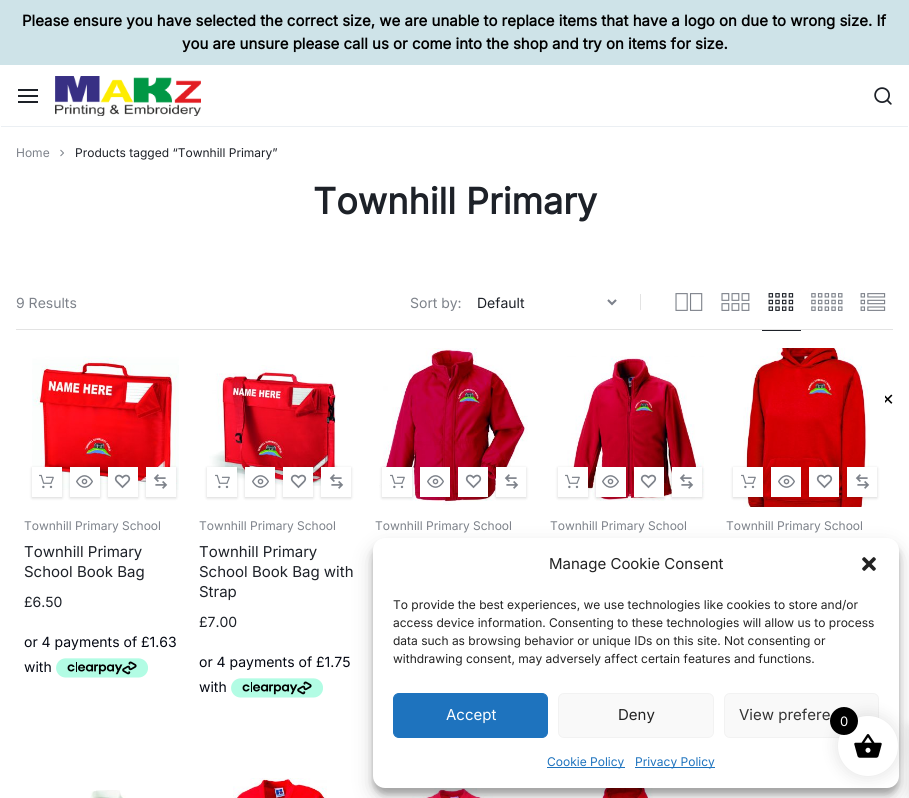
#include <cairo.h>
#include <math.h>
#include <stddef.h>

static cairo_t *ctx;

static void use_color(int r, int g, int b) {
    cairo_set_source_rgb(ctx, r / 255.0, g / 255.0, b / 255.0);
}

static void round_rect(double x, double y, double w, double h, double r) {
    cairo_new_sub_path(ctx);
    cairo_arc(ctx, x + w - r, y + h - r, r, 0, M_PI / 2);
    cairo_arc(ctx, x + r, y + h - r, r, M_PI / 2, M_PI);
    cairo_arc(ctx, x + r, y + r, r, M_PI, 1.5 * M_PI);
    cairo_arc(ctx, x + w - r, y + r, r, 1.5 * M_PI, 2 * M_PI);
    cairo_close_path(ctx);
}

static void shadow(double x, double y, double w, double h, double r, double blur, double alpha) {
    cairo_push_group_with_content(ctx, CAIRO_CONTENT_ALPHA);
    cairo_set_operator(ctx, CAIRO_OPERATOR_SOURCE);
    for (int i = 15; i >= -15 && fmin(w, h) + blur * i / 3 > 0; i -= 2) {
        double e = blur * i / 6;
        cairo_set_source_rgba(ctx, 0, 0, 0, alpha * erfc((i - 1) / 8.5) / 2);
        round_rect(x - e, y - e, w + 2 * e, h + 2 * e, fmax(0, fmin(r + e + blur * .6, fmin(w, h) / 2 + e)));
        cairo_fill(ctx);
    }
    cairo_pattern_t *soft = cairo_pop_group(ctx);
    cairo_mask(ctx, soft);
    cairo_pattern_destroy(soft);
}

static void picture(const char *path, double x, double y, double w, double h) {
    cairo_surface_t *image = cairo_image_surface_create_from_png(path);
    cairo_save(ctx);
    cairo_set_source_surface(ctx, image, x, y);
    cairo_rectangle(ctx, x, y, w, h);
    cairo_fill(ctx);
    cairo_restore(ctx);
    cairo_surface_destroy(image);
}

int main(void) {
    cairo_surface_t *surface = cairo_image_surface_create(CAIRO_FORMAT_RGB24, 909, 798);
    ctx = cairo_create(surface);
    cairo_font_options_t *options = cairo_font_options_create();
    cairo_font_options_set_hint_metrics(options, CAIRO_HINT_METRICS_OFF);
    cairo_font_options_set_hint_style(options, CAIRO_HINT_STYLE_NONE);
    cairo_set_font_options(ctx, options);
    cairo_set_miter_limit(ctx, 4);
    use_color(255, 255, 255);
    cairo_paint(ctx);
    use_color(206, 227, 232);
    cairo_rectangle(ctx, 0, 0, 909, 65);
    cairo_fill(ctx);
    cairo_select_font_face(ctx, "Inter", CAIRO_FONT_SLANT_NORMAL, CAIRO_FONT_WEIGHT_BOLD);
    cairo_set_font_size(ctx, 15);
    use_color(0, 0, 0);
    cairo_move_to(ctx, 22, 26);
    cairo_show_text(ctx, "Please ensure you have selected the correct size, we are unable to replace items that have a logo on due to wrong size. If");
    cairo_move_to(ctx, 182, 49);
    cairo_show_text(ctx, "you are unsure please call us or come into the shop and try on items for size.");
    cairo_select_font_face(ctx, "DejaVu Sans", CAIRO_FONT_SLANT_NORMAL, CAIRO_FONT_WEIGHT_NORMAL);
    cairo_set_font_size(ctx, 16);
    cairo_move_to(ctx, 881, 405);
    cairo_show_text(ctx, "✕");
    use_color(29, 33, 40);
    cairo_rectangle(ctx, 18, 89, 20, 2);
    cairo_fill(ctx);
    cairo_rectangle(ctx, 18, 95, 20, 2);
    cairo_fill(ctx);
    cairo_rectangle(ctx, 18, 101, 20, 2);
    cairo_fill(ctx);
    picture("img1.png", 55, 76, 146, 40);
    picture("img2.png", 874, 87, 18, 18);
    use_color(235, 239, 243);
    cairo_rectangle(ctx, 1, 126, 907, 1);
    cairo_fill(ctx);
    cairo_select_font_face(ctx, "Inter", CAIRO_FONT_SLANT_NORMAL, CAIRO_FONT_WEIGHT_NORMAL);
    cairo_set_font_size(ctx, 12);
    use_color(125, 130, 138);
    cairo_move_to(ctx, 16, 157);
    cairo_show_text(ctx, "Home");
    picture("img3.png", 60, 149, 4, 8);
    use_color(29, 33, 40);
    cairo_move_to(ctx, 75, 157);
    cairo_show_text(ctx, "Products tagged “Townhill Primary”");
    cairo_select_font_face(ctx, "Inter", CAIRO_FONT_SLANT_NORMAL, CAIRO_FONT_WEIGHT_BOLD);
    cairo_set_font_size(ctx, 36);
    cairo_move_to(ctx, 313, 214);
    cairo_show_text(ctx, "Townhill Primary");
    use_color(227, 227, 227);
    cairo_rectangle(ctx, 16, 329, 877, 1);
    cairo_fill(ctx);
    cairo_select_font_face(ctx, "Inter", CAIRO_FONT_SLANT_NORMAL, CAIRO_FONT_WEIGHT_NORMAL);
    cairo_set_font_size(ctx, 14);
    use_color(125, 130, 138);
    cairo_move_to(ctx, 16, 308);
    cairo_show_text(ctx, "9 Results");
    cairo_move_to(ctx, 410, 308);
    cairo_show_text(ctx, "Sort by:");
    picture("img4.png", 607, 299, 10, 7);
    use_color(29, 33, 40);
    cairo_move_to(ctx, 477, 308);
    cairo_show_text(ctx, "Default");
    use_color(227, 227, 227);
    cairo_rectangle(ctx, 640, 294, 1, 16);
    cairo_fill(ctx);
    picture("img5.png", 675, 293, 28, 18);
    picture("img6.png", 721, 293, 29, 18);
    picture("img7.png", 768, 293, 26, 18);
    use_color(29, 33, 40);
    cairo_rectangle(ctx, 762, 330, 39, 1);
    cairo_fill(ctx);
    picture("img8.png", 811, 293, 32, 18);
    picture("img9.png", 860, 293, 26, 18);
    picture("img10.png", 32, 356, 147, 134);
    use_color(0, 0, 0);
    shadow(32, 468, 30, 30, 0, 1.5, 0.16);
    use_color(255, 255, 255);
    cairo_rectangle(ctx, 32, 467, 30, 30);
    cairo_fill(ctx);
    picture("img11.png", 39, 474, 15, 15);
    use_color(0, 0, 0);
    shadow(70, 468, 30, 30, 0, 1.5, 0.16);
    use_color(255, 255, 255);
    cairo_rectangle(ctx, 70, 467, 30, 30);
    cairo_fill(ctx);
    picture("img12.png", 76, 475, 17, 13);
    use_color(0, 0, 0);
    shadow(108, 468, 30, 30, 0, 1.5, 0.16);
    use_color(255, 255, 255);
    cairo_rectangle(ctx, 108, 467, 30, 30);
    cairo_fill(ctx);
    picture("img13.png", 114, 474, 17, 15);
    use_color(0, 0, 0);
    shadow(146, 468, 30, 30, 0, 1.5, 0.16);
    use_color(255, 255, 255);
    cairo_rectangle(ctx, 146, 467, 30, 30);
    cairo_fill(ctx);
    picture("img14.png", 153, 474, 15, 15);
    cairo_set_font_size(ctx, 12);
    use_color(125, 130, 138);
    cairo_move_to(ctx, 24, 530);
    cairo_show_text(ctx, "Townhill Primary School");
    cairo_set_font_size(ctx, 15);
    use_color(29, 33, 40);
    cairo_move_to(ctx, 24, 557);
    cairo_show_text(ctx, "Townhill Primary");
    cairo_move_to(ctx, 24, 577);
    cairo_show_text(ctx, "School Book Bag");
    cairo_set_font_size(ctx, 14);
    cairo_move_to(ctx, 24, 607);
    cairo_show_text(ctx, "£6.50");
    use_color(3, 7, 18);
    cairo_move_to(ctx, 24, 647);
    cairo_show_text(ctx, "or 4 payments of £1.63");
    cairo_move_to(ctx, 24, 672);
    cairo_show_text(ctx, "with");
    picture("img15.png", 56, 658, 92, 20);
    picture("img16.png", 209, 365, 134, 121);
    use_color(0, 0, 0);
    shadow(207, 468, 30, 30, 0, 1.5, 0.16);
    use_color(255, 255, 255);
    cairo_rectangle(ctx, 207, 467, 30, 30);
    cairo_fill(ctx);
    picture("img11.png", 215, 474, 15, 15);
    use_color(0, 0, 0);
    shadow(245, 468, 30, 30, 0, 1.5, 0.16);
    use_color(255, 255, 255);
    cairo_rectangle(ctx, 245, 467, 30, 30);
    cairo_fill(ctx);
    picture("img12.png", 252, 475, 17, 13);
    use_color(0, 0, 0);
    shadow(283, 468, 30, 30, 0, 1.5, 0.16);
    use_color(255, 255, 255);
    cairo_rectangle(ctx, 283, 467, 30, 30);
    cairo_fill(ctx);
    picture("img13.png", 290, 474, 17, 15);
    use_color(0, 0, 0);
    shadow(321, 468, 30, 30, 0, 1.5, 0.16);
    use_color(255, 255, 255);
    cairo_rectangle(ctx, 321, 467, 30, 30);
    cairo_fill(ctx);
    picture("img14.png", 329, 474, 15, 15);
    cairo_set_font_size(ctx, 12);
    use_color(125, 130, 138);
    cairo_move_to(ctx, 199, 530);
    cairo_show_text(ctx, "Townhill Primary School");
    cairo_set_font_size(ctx, 15);
    use_color(29, 33, 40);
    cairo_move_to(ctx, 199, 557);
    cairo_show_text(ctx, "Townhill Primary");
    cairo_move_to(ctx, 199, 577);
    cairo_show_text(ctx, "School Book Bag with");
    cairo_move_to(ctx, 199, 597);
    cairo_show_text(ctx, "Strap");
    cairo_set_font_size(ctx, 14);
    cairo_move_to(ctx, 199, 627);
    cairo_show_text(ctx, "£7.00");
    use_color(3, 7, 18);
    cairo_move_to(ctx, 199, 667);
    cairo_show_text(ctx, "or 4 payments of £1.75");
    cairo_move_to(ctx, 199, 692);
    cairo_show_text(ctx, "with");
    picture("img15.png", 231, 678, 92, 20);
    picture("img17.png", 379, 348, 149, 157);
    use_color(0, 0, 0);
    shadow(382, 468, 30, 30, 0, 1.5, 0.16);
    use_color(255, 255, 255);
    cairo_rectangle(ctx, 382, 467, 30, 30);
    cairo_fill(ctx);
    picture("img11.png", 390, 474, 15, 15);
    use_color(0, 0, 0);
    shadow(420, 468, 30, 30, 0, 1.5, 0.16);
    use_color(255, 255, 255);
    cairo_rectangle(ctx, 420, 467, 30, 30);
    cairo_fill(ctx);
    picture("img12.png", 427, 475, 17, 13);
    use_color(0, 0, 0);
    shadow(458, 468, 30, 30, 0, 1.5, 0.16);
    use_color(255, 255, 255);
    cairo_rectangle(ctx, 458, 467, 30, 30);
    cairo_fill(ctx);
    picture("img13.png", 465, 474, 17, 15);
    use_color(0, 0, 0);
    shadow(496, 468, 30, 30, 0, 1.5, 0.16);
    use_color(255, 255, 255);
    cairo_rectangle(ctx, 496, 467, 30, 30);
    cairo_fill(ctx);
    picture("img14.png", 504, 474, 15, 15);
    cairo_set_font_size(ctx, 12);
    use_color(125, 130, 138);
    cairo_move_to(ctx, 375, 530);
    cairo_show_text(ctx, "Townhill Primary School");
    picture("img18.png", 567, 356, 137, 145);
    use_color(0, 0, 0);
    shadow(558, 468, 30, 30, 0, 1.5, 0.16);
    use_color(255, 255, 255);
    cairo_rectangle(ctx, 558, 467, 30, 30);
    cairo_fill(ctx);
    picture("img11.png", 565, 474, 15, 15);
    use_color(0, 0, 0);
    shadow(596, 468, 30, 30, 0, 1.5, 0.16);
    use_color(255, 255, 255);
    cairo_rectangle(ctx, 596, 467, 30, 30);
    cairo_fill(ctx);
    picture("img12.png", 602, 475, 17, 13);
    use_color(0, 0, 0);
    shadow(634, 468, 30, 30, 0, 1.5, 0.16);
    use_color(255, 255, 255);
    cairo_rectangle(ctx, 634, 467, 30, 30);
    cairo_fill(ctx);
    picture("img13.png", 640, 474, 17, 15);
    use_color(0, 0, 0);
    shadow(672, 468, 30, 30, 0, 1.5, 0.16);
    use_color(255, 255, 255);
    cairo_rectangle(ctx, 672, 467, 30, 30);
    cairo_fill(ctx);
    picture("img14.png", 679, 474, 15, 15);
    use_color(125, 130, 138);
    cairo_move_to(ctx, 550, 530);
    cairo_show_text(ctx, "Townhill Primary School");
    use_color(255, 255, 255);
    cairo_rectangle(ctx, 882, 394, 3, 10);
    cairo_fill(ctx);
    picture("img19.png", 743, 348, 127, 159);
    use_color(0, 0, 0);
    shadow(733, 468, 30, 30, 0, 1.5, 0.16);
    use_color(255, 255, 255);
    cairo_rectangle(ctx, 733, 467, 30, 30);
    cairo_fill(ctx);
    picture("img11.png", 741, 474, 15, 15);
    use_color(0, 0, 0);
    shadow(771, 468, 30, 30, 0, 1.5, 0.16);
    use_color(255, 255, 255);
    cairo_rectangle(ctx, 771, 467, 30, 30);
    cairo_fill(ctx);
    picture("img12.png", 778, 475, 17, 13);
    use_color(0, 0, 0);
    shadow(809, 468, 30, 30, 0, 1.5, 0.16);
    use_color(255, 255, 255);
    cairo_rectangle(ctx, 809, 467, 30, 30);
    cairo_fill(ctx);
    picture("img13.png", 816, 474, 17, 15);
    use_color(0, 0, 0);
    shadow(847, 468, 30, 30, 0, 1.5, 0.16);
    use_color(255, 255, 255);
    cairo_rectangle(ctx, 847, 467, 30, 30);
    cairo_fill(ctx);
    picture("img14.png", 855, 474, 15, 15);
    use_color(125, 130, 138);
    cairo_move_to(ctx, 726, 530);
    cairo_show_text(ctx, "Townhill Primary School");
    picture("img20.png", 90, 790, 36, 8);
    picture("img21.png", 233, 778, 94, 20);
    picture("img22.png", 412, 788, 81, 10);
    picture("img23.png", 601, 788, 52, 10);
    use_color(0, 0, 0);
    shadow(373, 544, 526, 250, 12, 3, 0.23);
    shadow(373, 548, 526, 250, 12, 10, 0.19);
    use_color(255, 255, 255);
    round_rect(373, 538, 526, 250, 12);
    cairo_fill(ctx);
    cairo_set_font_size(ctx, 15);
    use_color(34, 34, 34);
    cairo_move_to(ctx, 549, 569);
    cairo_show_text(ctx, "Manage Cookie Consent");
    picture("img24.png", 862, 557, 14, 14);
    cairo_set_font_size(ctx, 12);
    cairo_move_to(ctx, 393, 609);
    cairo_show_text(ctx, "To provide the best experiences, we use technologies like cookies to store and/or");
    cairo_move_to(ctx, 393, 627);
    cairo_show_text(ctx, "access device information. Consenting to these technologies will allow us to process");
    cairo_move_to(ctx, 393, 645);
    cairo_show_text(ctx, "data such as browsing behavior or unique IDs on this site. Not consenting or");
    cairo_move_to(ctx, 393, 663);
    cairo_show_text(ctx, "withdrawing consent, may adversely affect certain features and functions.");
    use_color(30, 115, 190);
    round_rect(393.5, 693.5, 154, 44, 5.5);
    cairo_fill_preserve(ctx);
    cairo_set_line_width(ctx, 1);
    cairo_stroke(ctx);
    cairo_set_font_size(ctx, 15);
    use_color(255, 255, 255);
    cairo_move_to(ctx, 446, 720);
    cairo_show_text(ctx, "Accept");
    use_color(249, 249, 249);
    round_rect(558.5, 693.5, 155, 44, 5.5);
    cairo_fill_preserve(ctx);
    use_color(242, 242, 242);
    cairo_stroke(ctx);
    use_color(34, 34, 34);
    cairo_move_to(ctx, 618, 720);
    cairo_show_text(ctx, "Deny");
    use_color(249, 249, 249);
    round_rect(724.5, 693.5, 154, 44, 5.5);
    cairo_fill_preserve(ctx);
    use_color(242, 242, 242);
    cairo_stroke(ctx);
    use_color(51, 51, 51);
    cairo_move_to(ctx, 739, 720);
    cairo_show_text(ctx, "View prefere");
    use_color(30, 115, 190);
    cairo_rectangle(ctx, 547, 767, 78, 1);
    cairo_fill(ctx);
    cairo_set_font_size(ctx, 12);
    cairo_move_to(ctx, 547, 766);
    cairo_show_text(ctx, "Cookie Policy");
    cairo_rectangle(ctx, 635, 767, 80, 1);
    cairo_fill(ctx);
    cairo_move_to(ctx, 635, 766);
    cairo_show_text(ctx, "Privacy Policy");
    use_color(0, 0, 0);
    shadow(836, 714, 64, 64, 32, 7.5, 0.1);
    shadow(909, 726, 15, 71, 0, 5, 0.1);
    use_color(255, 255, 255);
    cairo_arc(ctx, 868, 746, 30, 0, 2 * M_PI);
    cairo_fill(ctx);
    picture("img25.png", 854, 734, 28, 24);
    use_color(0, 0, 0);
    cairo_arc(ctx, 844, 721, 14, 0, 2 * M_PI);
    cairo_fill(ctx);
    cairo_set_font_size(ctx, 13);
    use_color(255, 255, 255);
    cairo_move_to(ctx, 840, 726);
    cairo_show_text(ctx, "0");
    cairo_surface_write_to_png(surface, "result.png");
    cairo_font_options_destroy(options);
    cairo_destroy(ctx);
    cairo_surface_destroy(surface);
    return 0;
}
